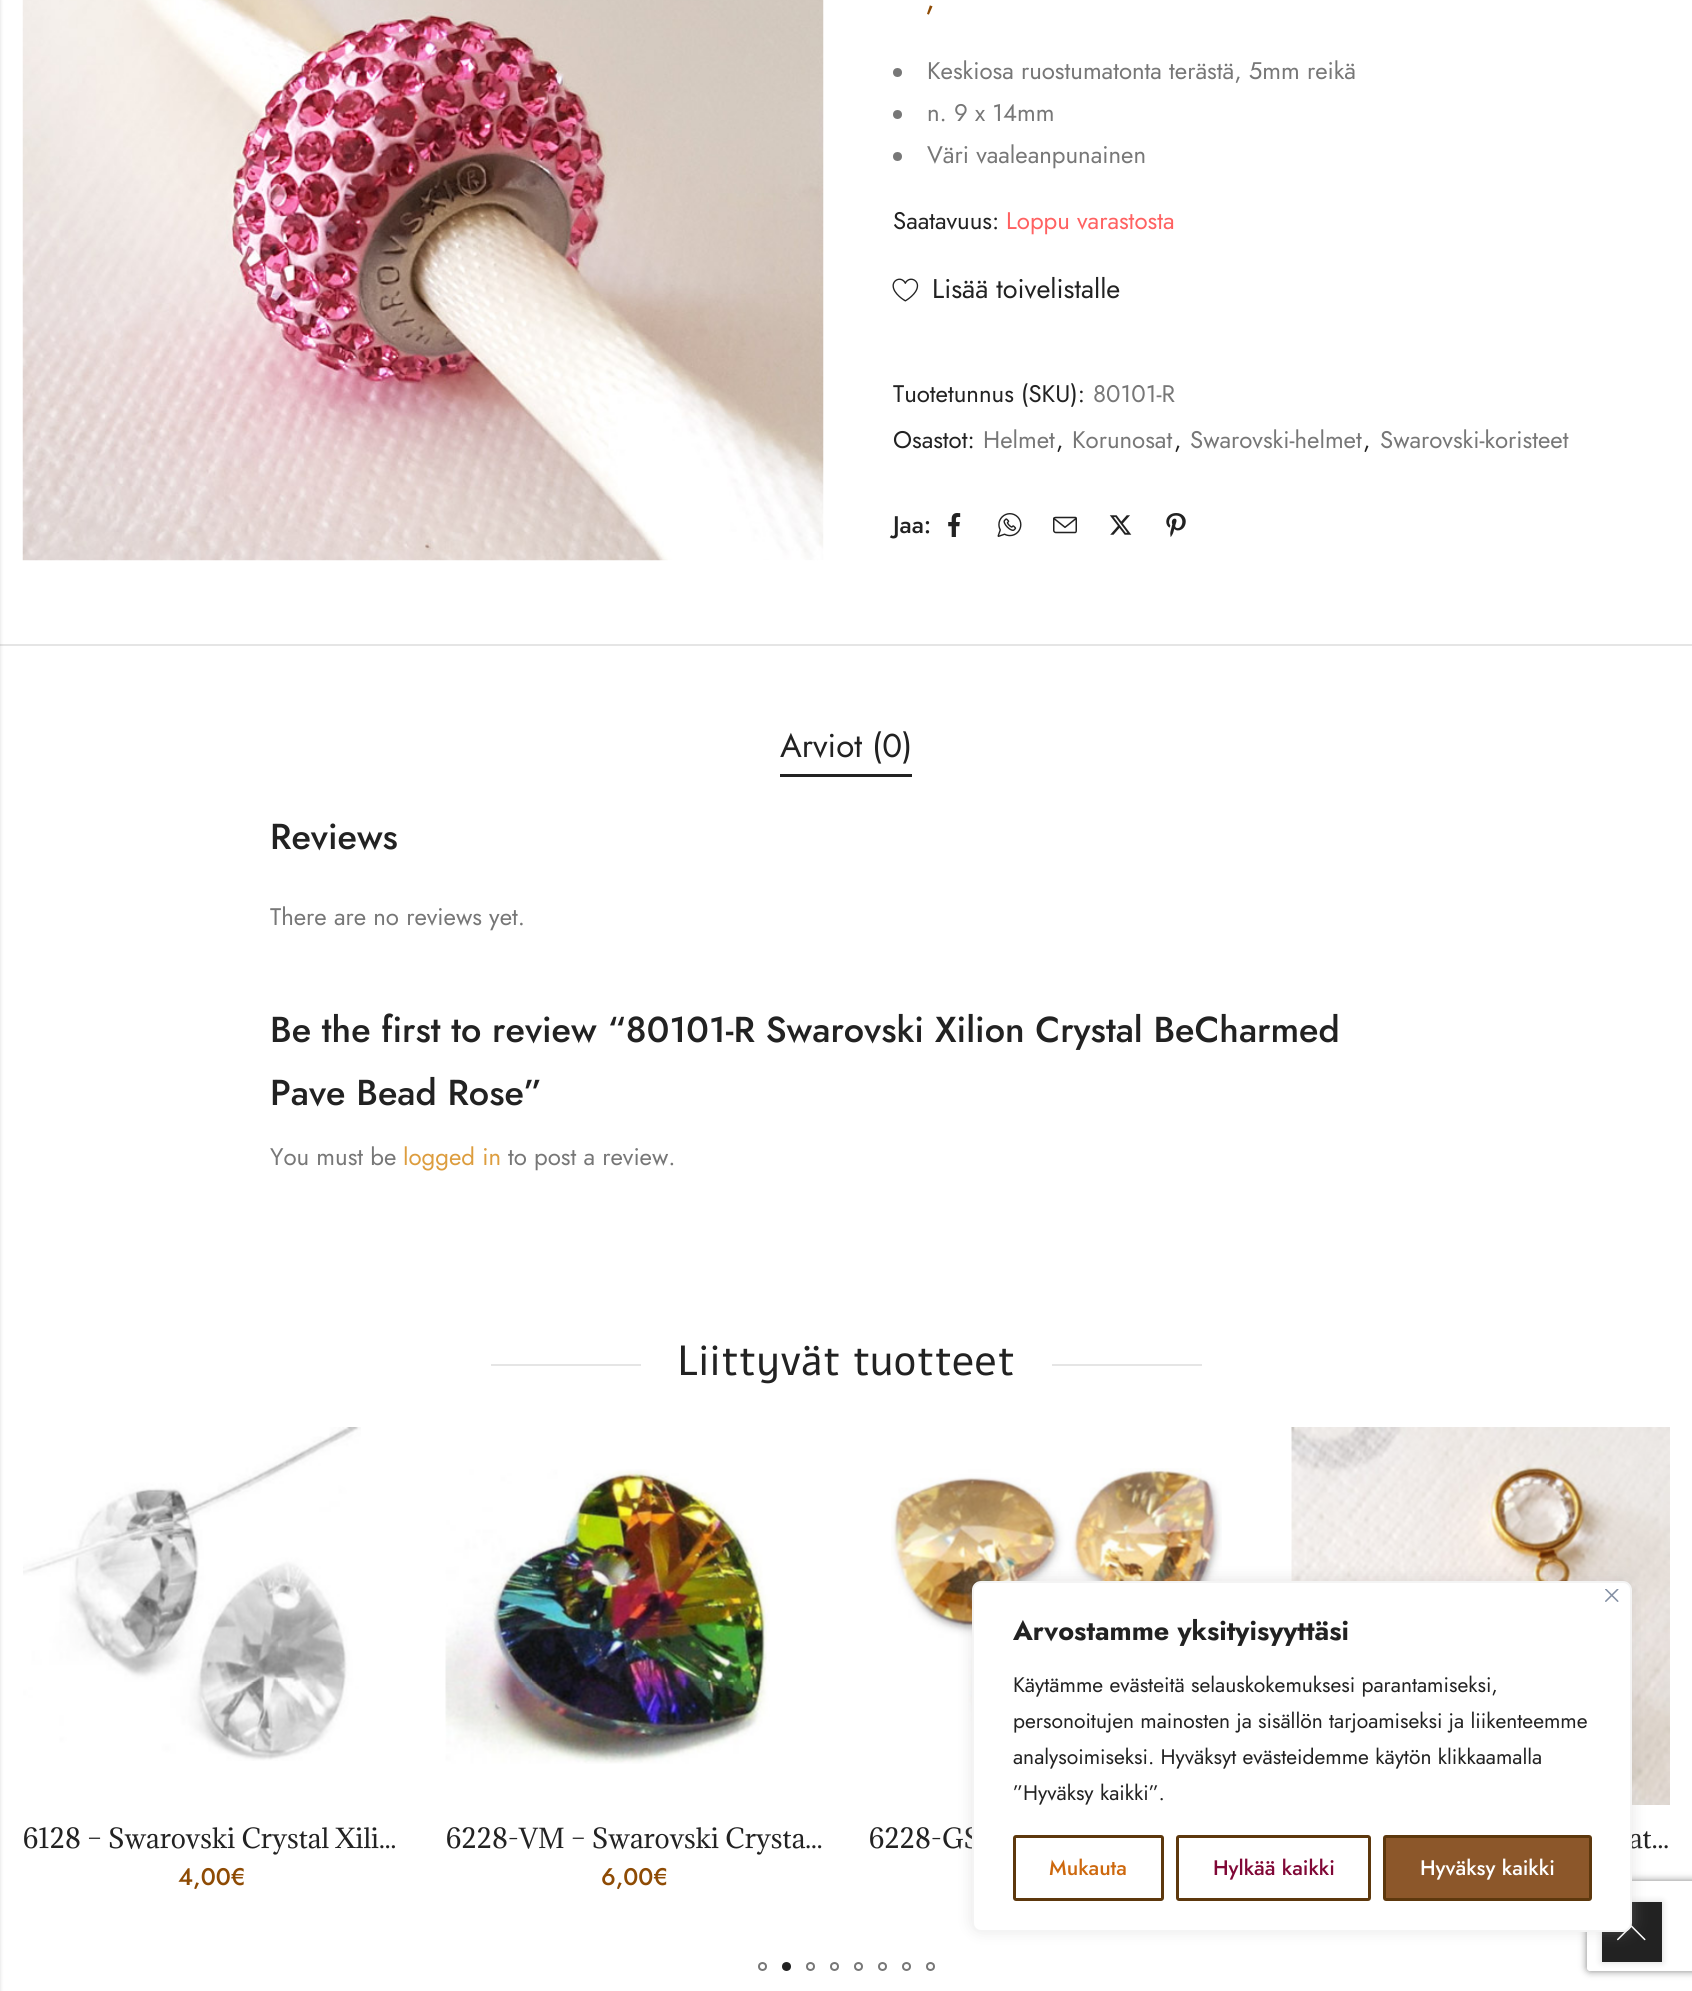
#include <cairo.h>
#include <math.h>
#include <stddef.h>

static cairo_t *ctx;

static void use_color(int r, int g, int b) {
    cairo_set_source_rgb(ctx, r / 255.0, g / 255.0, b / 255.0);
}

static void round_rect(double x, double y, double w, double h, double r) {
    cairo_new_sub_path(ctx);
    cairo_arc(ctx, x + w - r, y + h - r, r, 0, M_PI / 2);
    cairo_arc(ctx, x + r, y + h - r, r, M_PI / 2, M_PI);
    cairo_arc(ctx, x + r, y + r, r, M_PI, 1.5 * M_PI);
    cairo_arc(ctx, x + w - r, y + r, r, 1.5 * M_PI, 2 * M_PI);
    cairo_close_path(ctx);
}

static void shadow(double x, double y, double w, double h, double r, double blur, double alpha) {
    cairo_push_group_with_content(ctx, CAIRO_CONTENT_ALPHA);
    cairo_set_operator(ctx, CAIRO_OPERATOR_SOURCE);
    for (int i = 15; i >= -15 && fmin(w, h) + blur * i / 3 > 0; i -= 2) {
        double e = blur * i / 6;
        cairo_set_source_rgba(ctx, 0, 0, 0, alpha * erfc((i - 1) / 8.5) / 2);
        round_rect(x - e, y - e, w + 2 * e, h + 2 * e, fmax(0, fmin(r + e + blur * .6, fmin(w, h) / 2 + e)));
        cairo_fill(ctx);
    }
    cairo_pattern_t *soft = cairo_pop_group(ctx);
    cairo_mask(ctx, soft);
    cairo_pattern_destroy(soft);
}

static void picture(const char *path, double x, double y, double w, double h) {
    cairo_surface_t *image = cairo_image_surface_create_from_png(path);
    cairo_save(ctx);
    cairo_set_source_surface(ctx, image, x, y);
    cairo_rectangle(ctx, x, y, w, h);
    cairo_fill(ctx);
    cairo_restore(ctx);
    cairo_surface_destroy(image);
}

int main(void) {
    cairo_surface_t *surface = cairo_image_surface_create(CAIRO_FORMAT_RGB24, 1692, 1991);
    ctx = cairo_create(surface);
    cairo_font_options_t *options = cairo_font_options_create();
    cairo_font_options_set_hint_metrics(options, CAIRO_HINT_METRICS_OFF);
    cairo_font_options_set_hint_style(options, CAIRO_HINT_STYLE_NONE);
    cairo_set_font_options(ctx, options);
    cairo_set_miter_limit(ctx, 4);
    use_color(255, 255, 255);
    cairo_paint(ctx);
    use_color(229, 229, 229);
    cairo_rectangle(ctx, 0, 644, 1692, 2);
    cairo_fill(ctx);
    use_color(0, 0, 0);
    shadow(-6, 0, 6, 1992, 0, 2, 0.15);
    picture("img1.png", 22, 0, 802, 561);
    cairo_select_font_face(ctx, "Jost", CAIRO_FONT_SLANT_NORMAL, CAIRO_FONT_WEIGHT_NORMAL);
    cairo_set_font_size(ctx, 33);
    use_color(142, 75, 4);
    cairo_move_to(ctx, 925, 9);
    cairo_show_text(ctx, ",");
    use_color(119, 119, 119);
    cairo_new_path(ctx);
    cairo_arc(ctx, 897.5, 72.5, 4.5, 0, 2 * M_PI);
    cairo_fill(ctx);
    cairo_set_font_size(ctx, 24);
    cairo_move_to(ctx, 927, 79);
    cairo_show_text(ctx, "Keskiosa ruostumatonta terästä, 5mm reikä");
    cairo_new_path(ctx);
    cairo_arc(ctx, 897.5, 114.5, 4.5, 0, 2 * M_PI);
    cairo_fill(ctx);
    cairo_move_to(ctx, 927, 121);
    cairo_show_text(ctx, "n. 9 x 14mm");
    cairo_new_path(ctx);
    cairo_arc(ctx, 897.5, 156.5, 4.5, 0, 2 * M_PI);
    cairo_fill(ctx);
    cairo_move_to(ctx, 927, 163);
    cairo_show_text(ctx, "Väri vaaleanpunainen");
    use_color(34, 34, 34);
    cairo_move_to(ctx, 893, 229);
    cairo_show_text(ctx, "Saatavuus:");
    use_color(255, 97, 97);
    cairo_move_to(ctx, 1006, 229);
    cairo_show_text(ctx, "Loppu varastosta");
    picture("img2.png", 892, 278, 27, 24);
    cairo_set_font_size(ctx, 27);
    use_color(34, 34, 34);
    cairo_move_to(ctx, 932, 298);
    cairo_show_text(ctx, "Lisää toivelistalle");
    cairo_set_font_size(ctx, 24);
    cairo_move_to(ctx, 893, 402);
    cairo_show_text(ctx, "Tuotetunnus (SKU):");
    use_color(119, 119, 119);
    cairo_move_to(ctx, 1093, 402);
    cairo_show_text(ctx, "80101-R");
    use_color(34, 34, 34);
    cairo_move_to(ctx, 893, 448);
    cairo_show_text(ctx, "Osastot:");
    use_color(119, 119, 119);
    cairo_move_to(ctx, 983, 448);
    cairo_show_text(ctx, "Helmet");
    use_color(34, 34, 34);
    cairo_move_to(ctx, 1056, 448);
    cairo_show_text(ctx, ",");
    use_color(119, 119, 119);
    cairo_move_to(ctx, 1072, 448);
    cairo_show_text(ctx, "Korunosat");
    use_color(34, 34, 34);
    cairo_move_to(ctx, 1174, 448);
    cairo_show_text(ctx, ",");
    use_color(119, 119, 119);
    cairo_move_to(ctx, 1190, 448);
    cairo_show_text(ctx, "Swarovski-helmet");
    use_color(34, 34, 34);
    cairo_move_to(ctx, 1363, 448);
    cairo_show_text(ctx, ",");
    use_color(119, 119, 119);
    cairo_move_to(ctx, 1380, 448);
    cairo_show_text(ctx, "Swarovski-koristeet");
    cairo_select_font_face(ctx, "Jost Medium", CAIRO_FONT_SLANT_NORMAL, CAIRO_FONT_WEIGHT_NORMAL);
    use_color(34, 34, 34);
    cairo_move_to(ctx, 893, 533);
    cairo_show_text(ctx, "Jaa:");
    picture("img3.png", 948, 513, 13, 24);
    picture("img4.png", 997, 513, 25, 24);
    picture("img5.png", 1053, 516, 24, 18);
    picture("img6.png", 1109, 515, 23, 20);
    picture("img7.png", 1166, 513, 20, 24);
    cairo_select_font_face(ctx, "Jost", CAIRO_FONT_SLANT_NORMAL, CAIRO_FONT_WEIGHT_NORMAL);
    cairo_set_font_size(ctx, 33);
    cairo_move_to(ctx, 780, 757);
    cairo_show_text(ctx, "Arviot (0)");
    cairo_rectangle(ctx, 780, 774, 132, 3);
    cairo_fill(ctx);
    cairo_select_font_face(ctx, "Jost Medium", CAIRO_FONT_SLANT_NORMAL, CAIRO_FONT_WEIGHT_NORMAL);
    cairo_set_font_size(ctx, 36);
    cairo_move_to(ctx, 270, 849);
    cairo_show_text(ctx, "Reviews");
    cairo_select_font_face(ctx, "Jost", CAIRO_FONT_SLANT_NORMAL, CAIRO_FONT_WEIGHT_NORMAL);
    cairo_set_font_size(ctx, 24);
    use_color(119, 119, 119);
    cairo_move_to(ctx, 270, 925);
    cairo_show_text(ctx, "There are no reviews yet.");
    cairo_select_font_face(ctx, "Jost Medium", CAIRO_FONT_SLANT_NORMAL, CAIRO_FONT_WEIGHT_NORMAL);
    cairo_set_font_size(ctx, 36);
    use_color(34, 34, 34);
    cairo_move_to(ctx, 270, 1042);
    cairo_show_text(ctx, "Be the first to review “80101-R Swarovski Xilion Crystal BeCharmed");
    cairo_move_to(ctx, 270, 1105);
    cairo_show_text(ctx, "Pave Bead Rose”");
    cairo_select_font_face(ctx, "Jost", CAIRO_FONT_SLANT_NORMAL, CAIRO_FONT_WEIGHT_NORMAL);
    cairo_set_font_size(ctx, 24);
    use_color(119, 119, 119);
    cairo_move_to(ctx, 270, 1165);
    cairo_show_text(ctx, "You must be");
    use_color(221, 157, 62);
    cairo_move_to(ctx, 403, 1165);
    cairo_show_text(ctx, "logged in");
    use_color(119, 119, 119);
    cairo_move_to(ctx, 508, 1165);
    cairo_show_text(ctx, "to post a review.");
    use_color(229, 229, 229);
    cairo_rectangle(ctx, 491, 1364, 150, 2);
    cairo_fill(ctx);
    cairo_select_font_face(ctx, "Alef", CAIRO_FONT_SLANT_NORMAL, CAIRO_FONT_WEIGHT_NORMAL);
    cairo_set_font_size(ctx, 42);
    use_color(34, 34, 34);
    cairo_move_to(ctx, 677, 1375);
    cairo_show_text(ctx, "Liittyvät tuotteet");
    use_color(229, 229, 229);
    cairo_rectangle(ctx, 1052, 1364, 150, 2);
    cairo_fill(ctx);
    picture("img8.png", 23, 1427, 338, 334);
    cairo_select_font_face(ctx, "Adamina", CAIRO_FONT_SLANT_NORMAL, CAIRO_FONT_WEIGHT_NORMAL);
    cairo_set_font_size(ctx, 25.5);
    use_color(34, 34, 34);
    cairo_move_to(ctx, 23, 1848);
    cairo_show_text(ctx, "6128 – Swarovski Crystal Xili...");
    cairo_select_font_face(ctx, "Jost Medium", CAIRO_FONT_SLANT_NORMAL, CAIRO_FONT_WEIGHT_NORMAL);
    cairo_set_font_size(ctx, 24);
    use_color(142, 75, 4);
    cairo_move_to(ctx, 178, 1885);
    cairo_show_text(ctx, "4,00€");
    picture("img9.png", 445, 1469, 325, 295);
    cairo_select_font_face(ctx, "Adamina", CAIRO_FONT_SLANT_NORMAL, CAIRO_FONT_WEIGHT_NORMAL);
    cairo_set_font_size(ctx, 25.5);
    use_color(34, 34, 34);
    cairo_move_to(ctx, 446, 1848);
    cairo_show_text(ctx, "6228-VM – Swarovski Crysta...");
    cairo_select_font_face(ctx, "Jost Medium", CAIRO_FONT_SLANT_NORMAL, CAIRO_FONT_WEIGHT_NORMAL);
    cairo_set_font_size(ctx, 24);
    use_color(142, 75, 4);
    cairo_move_to(ctx, 601, 1885);
    cairo_show_text(ctx, "6,00€");
    picture("img10.png", 891, 1468, 331, 315);
    cairo_select_font_face(ctx, "Adamina", CAIRO_FONT_SLANT_NORMAL, CAIRO_FONT_WEIGHT_NORMAL);
    cairo_set_font_size(ctx, 25.5);
    use_color(34, 34, 34);
    cairo_move_to(ctx, 869, 1848);
    cairo_show_text(ctx, "6228-GS");
    picture("img11.png", 1291, 1427, 379, 378);
    cairo_move_to(ctx, 1629, 1848);
    cairo_show_text(ctx, "at...");
    cairo_new_path(ctx);
    cairo_arc(ctx, 762.5, 1966.5, 3.5, 0, 2 * M_PI);
    use_color(119, 119, 119);
    cairo_stroke(ctx);
    use_color(34, 34, 34);
    cairo_arc(ctx, 786.5, 1966.5, 3.5, 0, 2 * M_PI);
    cairo_fill_preserve(ctx);
    cairo_stroke(ctx);
    cairo_arc(ctx, 810.5, 1966.5, 3.5, 0, 2 * M_PI);
    use_color(119, 119, 119);
    cairo_stroke(ctx);
    cairo_arc(ctx, 834.5, 1966.5, 3.5, 0, 2 * M_PI);
    cairo_stroke(ctx);
    cairo_arc(ctx, 858.5, 1966.5, 3.5, 0, 2 * M_PI);
    cairo_stroke(ctx);
    cairo_arc(ctx, 882.5, 1966.5, 3.5, 0, 2 * M_PI);
    cairo_stroke(ctx);
    cairo_arc(ctx, 906.5, 1966.5, 3.5, 0, 2 * M_PI);
    cairo_stroke(ctx);
    cairo_arc(ctx, 930.5, 1966.5, 3.5, 0, 2 * M_PI);
    cairo_stroke(ctx);
    use_color(0, 0, 0);
    shadow(1602, 1902, 60, 60, 0, 4, 0.15);
    use_color(34, 34, 34);
    cairo_rectangle(ctx, 1602, 1902, 60, 60);
    cairo_fill(ctx);
    picture("img13.png", 1617, 1925, 29, 16);
    use_color(172, 171, 171);
    shadow(972, 1580, 660, 351, 9, 7.5, 0.3);
    cairo_save(ctx);
    cairo_set_fill_rule(ctx, CAIRO_FILL_RULE_EVEN_ODD);
    cairo_new_path(ctx);
    cairo_move_to(ctx, 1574, 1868);
    cairo_line_to(ctx, 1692, 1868);
    cairo_line_to(ctx, 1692, 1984);
    cairo_line_to(ctx, 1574, 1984);
    cairo_close_path(ctx);
    cairo_move_to(ctx, 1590, 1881);
    cairo_line_to(ctx, 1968, 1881);
    cairo_curve_to(ctx, 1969.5, 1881, 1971, 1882.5, 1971, 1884);
    cairo_line_to(ctx, 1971, 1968);
    cairo_curve_to(ctx, 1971, 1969.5, 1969.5, 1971, 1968, 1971);
    cairo_line_to(ctx, 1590, 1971);
    cairo_curve_to(ctx, 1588.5, 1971, 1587, 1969.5, 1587, 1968);
    cairo_line_to(ctx, 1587, 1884);
    cairo_curve_to(ctx, 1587, 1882.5, 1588.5, 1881, 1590, 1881);
    cairo_close_path(ctx);
    cairo_clip(ctx);
    use_color(128, 128, 128);
    shadow(1587, 1881, 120, 90, 3, 4, 1);
    cairo_restore(ctx);
    use_color(255, 255, 255);
    round_rect(973, 1582, 658, 349, 8);
    cairo_fill_preserve(ctx);
    use_color(244, 244, 244);
    cairo_stroke(ctx);
    picture("img12.png", 1605, 1589, 14, 13);
    cairo_select_font_face(ctx, "Jost", CAIRO_FONT_SLANT_NORMAL, CAIRO_FONT_WEIGHT_BOLD);
    cairo_set_font_size(ctx, 27);
    use_color(34, 34, 34);
    cairo_move_to(ctx, 1013, 1640);
    cairo_show_text(ctx, "Arvostamme yksityisyyttäsi");
    cairo_select_font_face(ctx, "Jost", CAIRO_FONT_SLANT_NORMAL, CAIRO_FONT_WEIGHT_NORMAL);
    cairo_set_font_size(ctx, 21);
    cairo_move_to(ctx, 1013, 1692);
    cairo_show_text(ctx, "Käytämme evästeitä selauskokemuksesi parantamiseksi,");
    cairo_move_to(ctx, 1013, 1728);
    cairo_show_text(ctx, "personoitujen mainosten ja sisällön tarjoamiseksi ja liikenteemme");
    cairo_move_to(ctx, 1013, 1764);
    cairo_show_text(ctx, "analysoimiseksi. Hyväksyt evästeidemme käytön klikkaamalla");
    cairo_move_to(ctx, 1013, 1800);
    cairo_show_text(ctx, "”Hyväksy kaikki”.");
    round_rect(1014.5, 1836.5, 148, 63, 1.5);
    use_color(93, 56, 13);
    cairo_set_line_width(ctx, 3);
    cairo_stroke(ctx);
    cairo_select_font_face(ctx, "Jost Medium", CAIRO_FONT_SLANT_NORMAL, CAIRO_FONT_WEIGHT_NORMAL);
    use_color(205, 104, 13);
    cairo_move_to(ctx, 1049, 1875);
    cairo_show_text(ctx, "Mukauta");
    round_rect(1177.5, 1836.5, 192, 63, 1.5);
    use_color(93, 56, 13);
    cairo_stroke(ctx);
    use_color(128, 7, 54);
    cairo_move_to(ctx, 1213, 1875);
    cairo_show_text(ctx, "Hylkää kaikki");
    use_color(140, 87, 42);
    round_rect(1384.5, 1836.5, 206, 63, 1.5);
    cairo_fill_preserve(ctx);
    use_color(93, 56, 13);
    cairo_stroke(ctx);
    use_color(255, 255, 255);
    cairo_move_to(ctx, 1420, 1875);
    cairo_show_text(ctx, "Hyväksy kaikki");
    cairo_surface_write_to_png(surface, "result.png");
    cairo_font_options_destroy(options);
    cairo_destroy(ctx);
    cairo_surface_destroy(surface);
    return 0;
}
